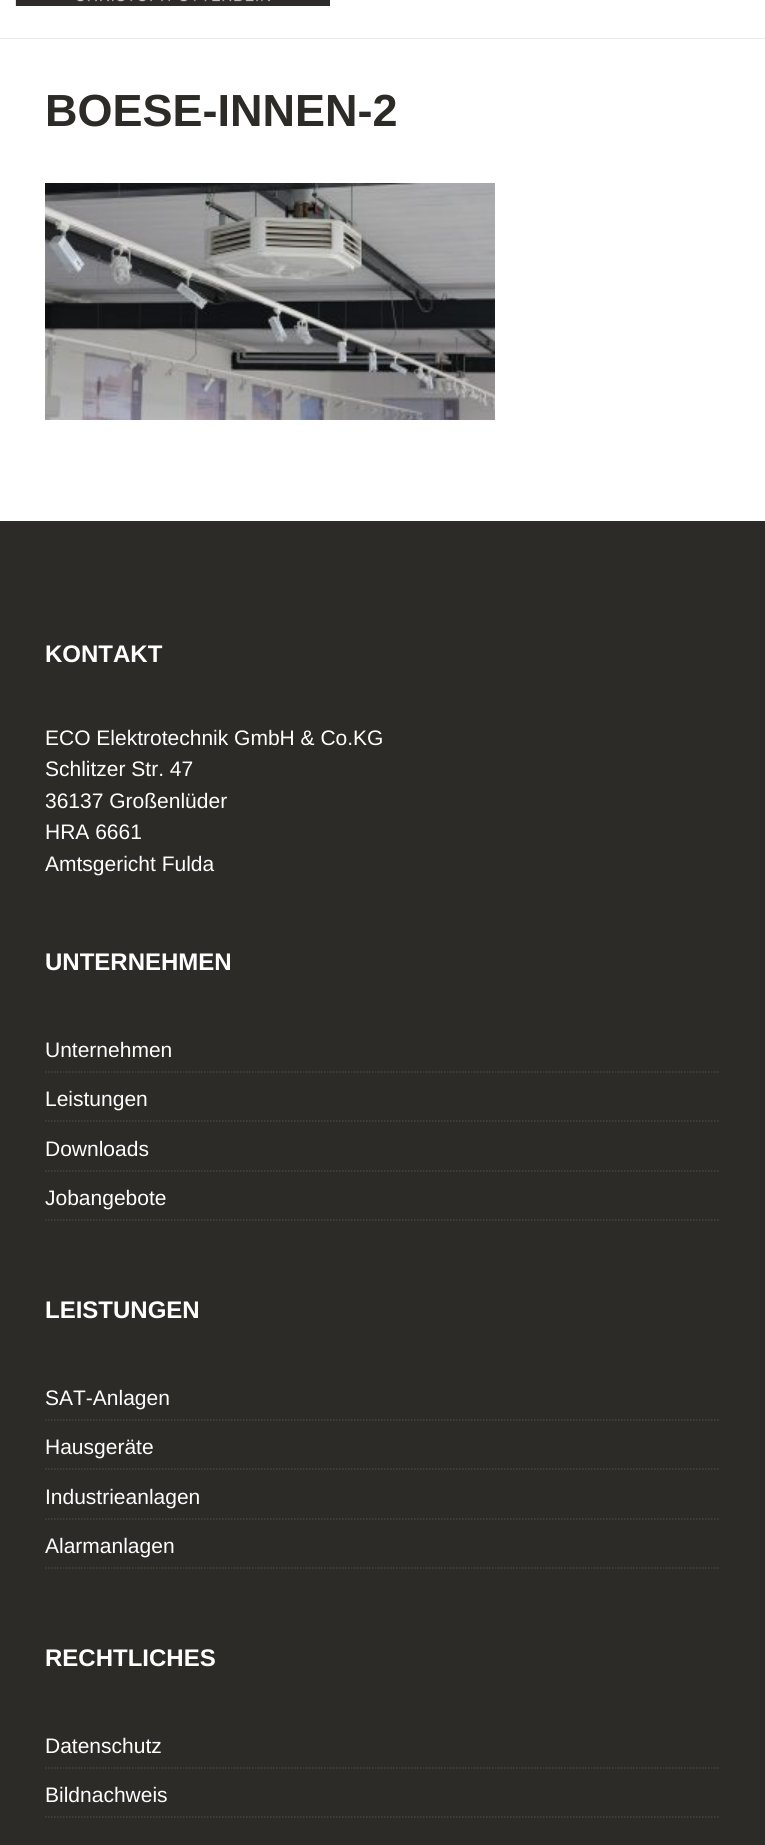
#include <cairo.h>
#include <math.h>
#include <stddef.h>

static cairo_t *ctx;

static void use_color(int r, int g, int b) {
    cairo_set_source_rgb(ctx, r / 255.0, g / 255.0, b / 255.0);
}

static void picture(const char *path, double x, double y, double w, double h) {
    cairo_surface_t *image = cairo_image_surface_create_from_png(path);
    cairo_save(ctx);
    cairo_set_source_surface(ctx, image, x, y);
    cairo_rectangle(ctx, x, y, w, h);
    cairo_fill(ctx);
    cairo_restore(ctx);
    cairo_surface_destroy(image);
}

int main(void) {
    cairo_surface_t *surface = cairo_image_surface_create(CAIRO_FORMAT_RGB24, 765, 1845);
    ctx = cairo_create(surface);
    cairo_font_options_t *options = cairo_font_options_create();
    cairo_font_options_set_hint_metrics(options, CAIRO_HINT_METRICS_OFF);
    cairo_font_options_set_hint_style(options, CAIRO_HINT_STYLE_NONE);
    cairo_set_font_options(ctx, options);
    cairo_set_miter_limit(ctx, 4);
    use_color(255, 255, 255);
    cairo_paint(ctx);
    use_color(234, 234, 234);
    cairo_rectangle(ctx, 0, 38, 765, 1);
    cairo_fill(ctx);
    picture("img1.png", 15, 0, 315, 6);
    cairo_select_font_face(ctx, "Liberation Sans", CAIRO_FONT_SLANT_NORMAL, CAIRO_FONT_WEIGHT_BOLD);
    cairo_set_font_size(ctx, 45);
    use_color(45, 43, 40);
    cairo_move_to(ctx, 45, 126);
    cairo_show_text(ctx, "BOESE-INNEN-2");
    picture("img2.png", 45, 183, 450, 237);
    cairo_rectangle(ctx, 0, 521, 765, 1324);
    cairo_fill(ctx);
    cairo_set_font_size(ctx, 24);
    use_color(255, 255, 255);
    cairo_move_to(ctx, 45, 662);
    cairo_show_text(ctx, "KONTAKT");
    cairo_select_font_face(ctx, "Liberation Sans", CAIRO_FONT_SLANT_NORMAL, CAIRO_FONT_WEIGHT_NORMAL);
    cairo_set_font_size(ctx, 21);
    cairo_move_to(ctx, 45, 745);
    cairo_show_text(ctx, "ECO Elektrotechnik GmbH & Co.KG");
    cairo_move_to(ctx, 45, 776);
    cairo_show_text(ctx, "Schlitzer Str. 47");
    cairo_move_to(ctx, 45, 808);
    cairo_show_text(ctx, "36137 Großenlüder");
    cairo_move_to(ctx, 45, 839);
    cairo_show_text(ctx, "HRA 6661");
    cairo_move_to(ctx, 45, 871);
    cairo_show_text(ctx, "Amtsgericht Fulda");
    cairo_select_font_face(ctx, "Liberation Sans", CAIRO_FONT_SLANT_NORMAL, CAIRO_FONT_WEIGHT_BOLD);
    cairo_set_font_size(ctx, 24);
    cairo_move_to(ctx, 45, 970);
    cairo_show_text(ctx, "UNTERNEHMEN");
    cairo_new_path(ctx);
    cairo_move_to(ctx, 45, 1072);
    cairo_line_to(ctx, 720, 1072);
    use_color(68, 68, 68);
    cairo_set_line_width(ctx, 1.5);
    cairo_set_dash(ctx, (double[]){1.5, 1.5}, 2, 0);
    cairo_stroke(ctx);
    cairo_select_font_face(ctx, "Liberation Sans", CAIRO_FONT_SLANT_NORMAL, CAIRO_FONT_WEIGHT_NORMAL);
    cairo_set_font_size(ctx, 21);
    use_color(255, 255, 255);
    cairo_move_to(ctx, 45, 1057);
    cairo_show_text(ctx, "Unternehmen");
    cairo_new_path(ctx);
    cairo_move_to(ctx, 45, 1121);
    cairo_line_to(ctx, 720, 1121);
    use_color(68, 68, 68);
    cairo_stroke(ctx);
    use_color(255, 255, 255);
    cairo_move_to(ctx, 45, 1106);
    cairo_show_text(ctx, "Leistungen");
    cairo_new_path(ctx);
    cairo_move_to(ctx, 45, 1171);
    cairo_line_to(ctx, 720, 1171);
    use_color(68, 68, 68);
    cairo_stroke(ctx);
    use_color(255, 255, 255);
    cairo_move_to(ctx, 45, 1156);
    cairo_show_text(ctx, "Downloads");
    cairo_new_path(ctx);
    cairo_move_to(ctx, 45, 1220);
    cairo_line_to(ctx, 720, 1220);
    use_color(68, 68, 68);
    cairo_stroke(ctx);
    use_color(255, 255, 255);
    cairo_move_to(ctx, 45, 1205);
    cairo_show_text(ctx, "Jobangebote");
    cairo_select_font_face(ctx, "Liberation Sans", CAIRO_FONT_SLANT_NORMAL, CAIRO_FONT_WEIGHT_BOLD);
    cairo_set_font_size(ctx, 24);
    cairo_move_to(ctx, 45, 1318);
    cairo_show_text(ctx, "LEISTUNGEN");
    cairo_new_path(ctx);
    cairo_move_to(ctx, 45, 1420);
    cairo_line_to(ctx, 720, 1420);
    use_color(68, 68, 68);
    cairo_stroke(ctx);
    cairo_select_font_face(ctx, "Liberation Sans", CAIRO_FONT_SLANT_NORMAL, CAIRO_FONT_WEIGHT_NORMAL);
    cairo_set_font_size(ctx, 21);
    use_color(255, 255, 255);
    cairo_move_to(ctx, 45, 1405);
    cairo_show_text(ctx, "SAT-Anlagen");
    cairo_new_path(ctx);
    cairo_move_to(ctx, 45, 1469);
    cairo_line_to(ctx, 720, 1469);
    use_color(68, 68, 68);
    cairo_stroke(ctx);
    use_color(255, 255, 255);
    cairo_move_to(ctx, 45, 1454);
    cairo_show_text(ctx, "Hausgeräte");
    cairo_new_path(ctx);
    cairo_move_to(ctx, 45, 1519);
    cairo_line_to(ctx, 720, 1519);
    use_color(68, 68, 68);
    cairo_stroke(ctx);
    use_color(255, 255, 255);
    cairo_move_to(ctx, 45, 1504);
    cairo_show_text(ctx, "Industrieanlagen");
    cairo_new_path(ctx);
    cairo_move_to(ctx, 45, 1568);
    cairo_line_to(ctx, 720, 1568);
    use_color(68, 68, 68);
    cairo_stroke(ctx);
    use_color(255, 255, 255);
    cairo_move_to(ctx, 45, 1553);
    cairo_show_text(ctx, "Alarmanlagen");
    cairo_select_font_face(ctx, "Liberation Sans", CAIRO_FONT_SLANT_NORMAL, CAIRO_FONT_WEIGHT_BOLD);
    cairo_set_font_size(ctx, 24);
    cairo_move_to(ctx, 45, 1666);
    cairo_show_text(ctx, "RECHTLICHES");
    cairo_new_path(ctx);
    cairo_move_to(ctx, 45, 1768);
    cairo_line_to(ctx, 720, 1768);
    use_color(68, 68, 68);
    cairo_stroke(ctx);
    cairo_select_font_face(ctx, "Liberation Sans", CAIRO_FONT_SLANT_NORMAL, CAIRO_FONT_WEIGHT_NORMAL);
    cairo_set_font_size(ctx, 21);
    use_color(255, 255, 255);
    cairo_move_to(ctx, 45, 1753);
    cairo_show_text(ctx, "Datenschutz");
    cairo_new_path(ctx);
    cairo_move_to(ctx, 45, 1817);
    cairo_line_to(ctx, 720, 1817);
    use_color(68, 68, 68);
    cairo_stroke(ctx);
    use_color(255, 255, 255);
    cairo_move_to(ctx, 45, 1802);
    cairo_show_text(ctx, "Bildnachweis");
    cairo_surface_write_to_png(surface, "result.png");
    cairo_font_options_destroy(options);
    cairo_destroy(ctx);
    cairo_surface_destroy(surface);
    return 0;
}
